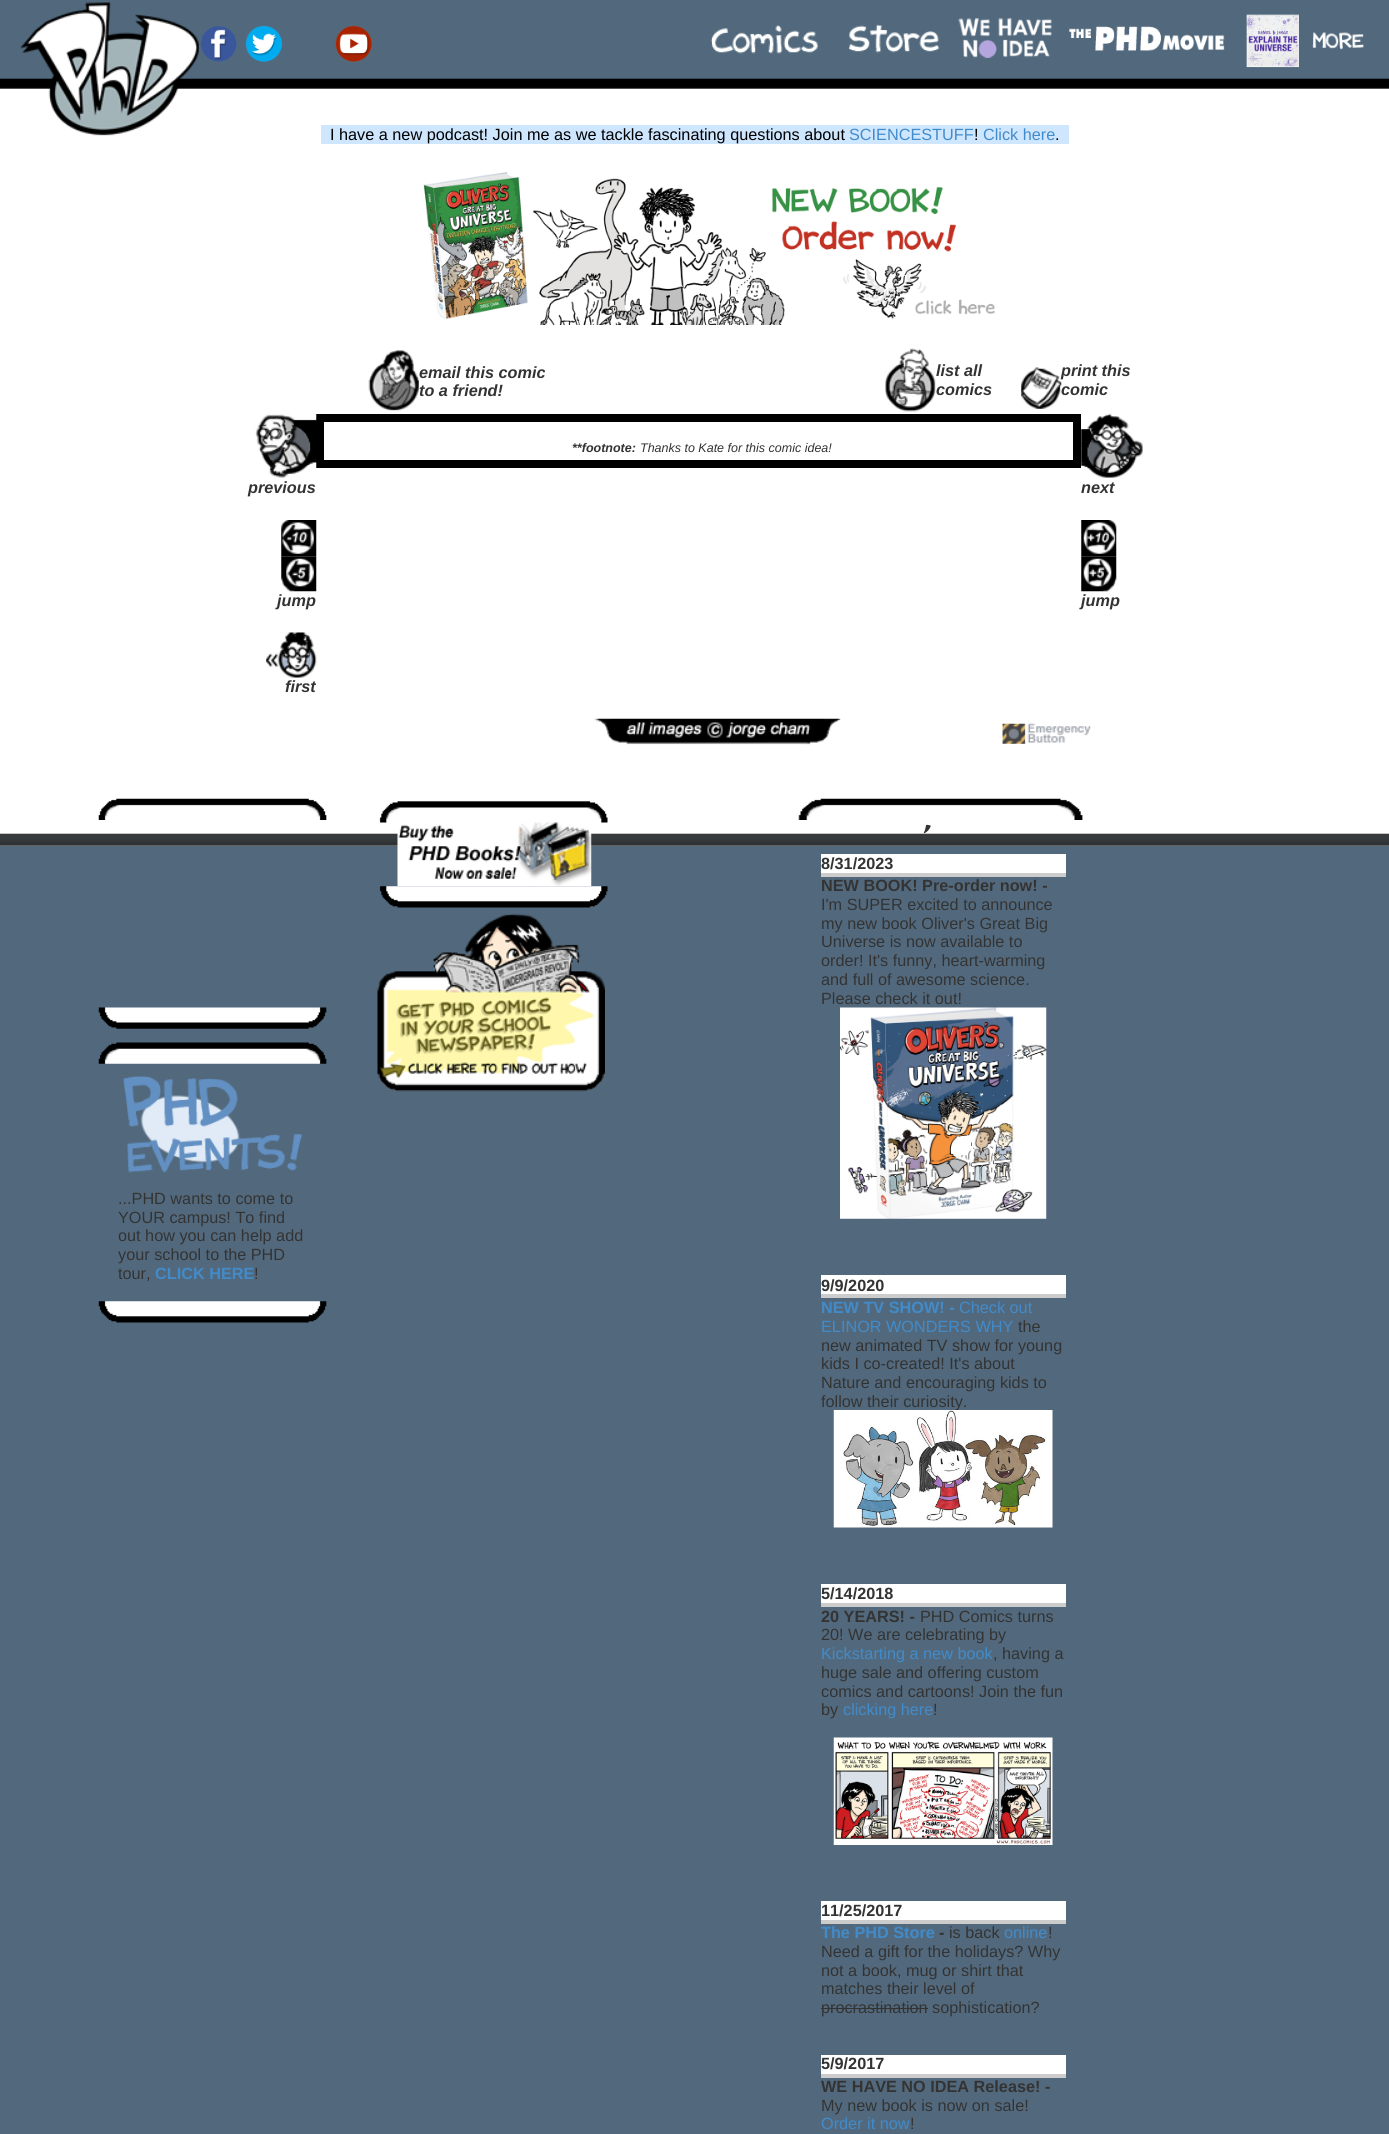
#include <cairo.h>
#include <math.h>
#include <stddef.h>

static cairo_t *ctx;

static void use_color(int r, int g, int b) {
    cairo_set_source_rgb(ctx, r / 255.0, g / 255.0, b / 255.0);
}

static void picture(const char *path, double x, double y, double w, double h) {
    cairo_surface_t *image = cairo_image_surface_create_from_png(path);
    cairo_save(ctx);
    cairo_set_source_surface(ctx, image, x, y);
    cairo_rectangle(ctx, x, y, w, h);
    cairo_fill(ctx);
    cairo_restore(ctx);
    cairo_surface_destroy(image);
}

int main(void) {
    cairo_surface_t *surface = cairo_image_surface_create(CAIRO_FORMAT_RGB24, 1389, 2134);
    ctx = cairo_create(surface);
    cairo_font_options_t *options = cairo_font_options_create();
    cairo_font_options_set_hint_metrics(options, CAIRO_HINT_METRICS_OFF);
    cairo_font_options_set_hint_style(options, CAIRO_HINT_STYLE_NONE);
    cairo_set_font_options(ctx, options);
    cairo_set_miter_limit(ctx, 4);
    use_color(255, 255, 255);
    cairo_paint(ctx);
    picture("img1.png", 0, 0, 1389, 89);
    picture("img2.png", 20, 2, 179, 134);
    picture("img3.png", 200, 26, 37, 36);
    picture("img4.png", 245, 25, 38, 37);
    picture("img5.png", 335, 25, 37, 37);
    picture("img6.png", 710, 25, 108, 29);
    picture("img7.png", 849, 24, 91, 29);
    picture("img8.png", 958, 18, 94, 40);
    picture("img9.png", 1069, 26, 156, 25);
    picture("img10.png", 1246, 14, 53, 54);
    picture("img11.png", 1312, 32, 52, 18);
    use_color(207, 230, 255);
    cairo_rectangle(ctx, 321, 125, 748, 19);
    cairo_fill(ctx);
    cairo_select_font_face(ctx, "Liberation Sans", CAIRO_FONT_SLANT_NORMAL, CAIRO_FONT_WEIGHT_NORMAL);
    cairo_set_font_size(ctx, 16.25);
    use_color(0, 0, 0);
    cairo_move_to(ctx, 330, 140);
    cairo_show_text(ctx, "I have a new podcast! Join me as we tackle fascinating questions about");
    use_color(66, 139, 202);
    cairo_move_to(ctx, 849, 140);
    cairo_show_text(ctx, "SCIENCESTUFF");
    use_color(0, 0, 0);
    cairo_move_to(ctx, 974, 140);
    cairo_show_text(ctx, "!");
    use_color(66, 139, 202);
    cairo_move_to(ctx, 983, 140);
    cairo_show_text(ctx, "Click here");
    use_color(0, 0, 0);
    cairo_move_to(ctx, 1055, 140);
    cairo_show_text(ctx, ".");
    picture("img12.png", 423, 172, 572, 153);
    picture("img13.png", 368, 350, 51, 61);
    cairo_select_font_face(ctx, "Liberation Sans", CAIRO_FONT_SLANT_ITALIC, CAIRO_FONT_WEIGHT_BOLD);
    use_color(51, 51, 51);
    cairo_move_to(ctx, 419, 378);
    cairo_show_text(ctx, "email this comic");
    cairo_move_to(ctx, 419, 396);
    cairo_show_text(ctx, "to a friend!");
    picture("img14.png", 885, 348, 51, 64);
    cairo_move_to(ctx, 936, 376);
    cairo_show_text(ctx, "list all");
    cairo_move_to(ctx, 936, 395);
    cairo_show_text(ctx, "comics");
    picture("img15.png", 1021, 367, 41, 42);
    cairo_move_to(ctx, 1061, 376);
    cairo_show_text(ctx, "print this");
    cairo_move_to(ctx, 1061, 395);
    cairo_show_text(ctx, "comic");
    cairo_rectangle(ctx, 320, 418, 757, 46);
    use_color(0, 0, 0);
    cairo_set_line_width(ctx, 8);
    cairo_stroke(ctx);
    cairo_set_font_size(ctx, 12.5);
    use_color(51, 51, 51);
    cairo_move_to(ctx, 572, 452);
    cairo_show_text(ctx, "**footnote:");
    cairo_select_font_face(ctx, "Liberation Sans", CAIRO_FONT_SLANT_ITALIC, CAIRO_FONT_WEIGHT_NORMAL);
    cairo_move_to(ctx, 640, 452);
    cairo_show_text(ctx, "Thanks to Kate for this comic idea!");
    picture("img16.png", 255, 414, 62, 64);
    cairo_select_font_face(ctx, "Liberation Sans", CAIRO_FONT_SLANT_ITALIC, CAIRO_FONT_WEIGHT_BOLD);
    cairo_set_font_size(ctx, 16.25);
    cairo_move_to(ctx, 248, 493);
    cairo_show_text(ctx, "previous");
    picture("img17.png", 281, 520, 36, 37);
    picture("img18.png", 281, 556, 36, 36);
    cairo_move_to(ctx, 277, 606);
    cairo_show_text(ctx, "jump");
    picture("img19.png", 266, 632, 51, 46);
    cairo_move_to(ctx, 285, 692);
    cairo_show_text(ctx, "first");
    picture("img20.png", 1081, 413, 62, 65);
    cairo_move_to(ctx, 1081, 493);
    cairo_show_text(ctx, "next");
    picture("img21.png", 1081, 520, 36, 37);
    picture("img22.png", 1081, 556, 36, 36);
    cairo_move_to(ctx, 1081, 606);
    cairo_show_text(ctx, "jump");
    picture("img23.png", 594, 718, 247, 27);
    picture("img24.png", 1002, 723, 89, 21);
    use_color(82, 105, 125);
    cairo_rectangle(ctx, 0, 846, 1389, 1288);
    cairo_fill(ctx);
    picture("img25.png", 0, 773, 1389, 74);
    picture("img26.png", 379, 801, 229, 22);
    picture("img27.png", 397, 822, 195, 65);
    picture("img28.png", 379, 886, 229, 22);
    picture("img29.png", 377, 913, 228, 179);
    picture("img30.png", 98, 798, 229, 22);
    picture("img31.png", 98, 1007, 229, 22);
    picture("img32.png", 98, 1042, 229, 22);
    picture("img33.png", 122, 1076, 181, 97);
    cairo_select_font_face(ctx, "Liberation Sans", CAIRO_FONT_SLANT_NORMAL, CAIRO_FONT_WEIGHT_NORMAL);
    use_color(51, 51, 51);
    cairo_move_to(ctx, 118, 1204);
    cairo_show_text(ctx, "...PHD wants to come to");
    cairo_move_to(ctx, 118, 1223);
    cairo_show_text(ctx, "YOUR campus! To find");
    cairo_move_to(ctx, 118, 1241);
    cairo_show_text(ctx, "out how you can help add");
    cairo_move_to(ctx, 118, 1260);
    cairo_show_text(ctx, "your school to the PHD");
    cairo_move_to(ctx, 118, 1279);
    cairo_show_text(ctx, "tour,");
    cairo_select_font_face(ctx, "Liberation Sans", CAIRO_FONT_SLANT_NORMAL, CAIRO_FONT_WEIGHT_BOLD);
    use_color(66, 139, 202);
    cairo_move_to(ctx, 155, 1279);
    cairo_show_text(ctx, "CLICK HERE");
    cairo_select_font_face(ctx, "Liberation Sans", CAIRO_FONT_SLANT_NORMAL, CAIRO_FONT_WEIGHT_NORMAL);
    use_color(51, 51, 51);
    cairo_move_to(ctx, 254, 1279);
    cairo_show_text(ctx, "!");
    picture("img34.png", 98, 1301, 229, 22);
    picture("img35.png", 798, 798, 285, 22);
    cairo_select_font_face(ctx, "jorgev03", CAIRO_FONT_SLANT_NORMAL, CAIRO_FONT_WEIGHT_NORMAL);
    cairo_set_font_size(ctx, 40);
    cairo_move_to(ctx, 923, 860);
    cairo_show_text(ctx, "'");
    use_color(255, 255, 255);
    cairo_rectangle(ctx, 821, 854, 245, 19);
    cairo_fill(ctx);
    cairo_select_font_face(ctx, "Liberation Sans", CAIRO_FONT_SLANT_NORMAL, CAIRO_FONT_WEIGHT_BOLD);
    cairo_set_font_size(ctx, 16.25);
    use_color(51, 51, 51);
    cairo_move_to(ctx, 821, 869);
    cairo_show_text(ctx, "8/31/2023");
    use_color(204, 204, 204);
    cairo_rectangle(ctx, 821, 873, 245, 4);
    cairo_fill(ctx);
    use_color(51, 51, 51);
    cairo_move_to(ctx, 821, 891);
    cairo_show_text(ctx, "NEW BOOK! Pre-order now! -");
    cairo_select_font_face(ctx, "Liberation Sans", CAIRO_FONT_SLANT_NORMAL, CAIRO_FONT_WEIGHT_NORMAL);
    cairo_move_to(ctx, 821, 910);
    cairo_show_text(ctx, "I'm SUPER excited to announce");
    cairo_move_to(ctx, 821, 929);
    cairo_show_text(ctx, "my new book Oliver's Great Big");
    cairo_move_to(ctx, 821, 947);
    cairo_show_text(ctx, "Universe is now available to");
    cairo_move_to(ctx, 821, 966);
    cairo_show_text(ctx, "order! It's funny, heart-warming");
    cairo_move_to(ctx, 821, 985);
    cairo_show_text(ctx, "and full of awesome science.");
    cairo_move_to(ctx, 821, 1004);
    cairo_show_text(ctx, "Please check it out!");
    picture("img36.png", 840, 1007, 207, 212);
    use_color(255, 255, 255);
    cairo_rectangle(ctx, 821, 1275, 245, 19);
    cairo_fill(ctx);
    cairo_select_font_face(ctx, "Liberation Sans", CAIRO_FONT_SLANT_NORMAL, CAIRO_FONT_WEIGHT_BOLD);
    use_color(51, 51, 51);
    cairo_move_to(ctx, 821, 1291);
    cairo_show_text(ctx, "9/9/2020");
    use_color(204, 204, 204);
    cairo_rectangle(ctx, 821, 1294, 245, 4);
    cairo_fill(ctx);
    use_color(66, 139, 202);
    cairo_move_to(ctx, 821, 1313);
    cairo_show_text(ctx, "NEW TV SHOW! -");
    cairo_select_font_face(ctx, "Liberation Sans", CAIRO_FONT_SLANT_NORMAL, CAIRO_FONT_WEIGHT_NORMAL);
    cairo_move_to(ctx, 959, 1313);
    cairo_show_text(ctx, "Check out");
    cairo_move_to(ctx, 821, 1332);
    cairo_show_text(ctx, "ELINOR WONDERS WHY");
    use_color(51, 51, 51);
    cairo_move_to(ctx, 1018, 1332);
    cairo_show_text(ctx, "the");
    cairo_move_to(ctx, 821, 1351);
    cairo_show_text(ctx, "new animated TV show for young");
    cairo_move_to(ctx, 821, 1369);
    cairo_show_text(ctx, "kids I co-created! It's about");
    cairo_move_to(ctx, 821, 1388);
    cairo_show_text(ctx, "Nature and encouraging kids to");
    cairo_move_to(ctx, 821, 1407);
    cairo_show_text(ctx, "follow their curiosity.");
    picture("img37.png", 833, 1410, 220, 118);
    use_color(255, 255, 255);
    cairo_rectangle(ctx, 821, 1584, 245, 19);
    cairo_fill(ctx);
    cairo_select_font_face(ctx, "Liberation Sans", CAIRO_FONT_SLANT_NORMAL, CAIRO_FONT_WEIGHT_BOLD);
    use_color(51, 51, 51);
    cairo_move_to(ctx, 821, 1599);
    cairo_show_text(ctx, "5/14/2018");
    use_color(204, 204, 204);
    cairo_rectangle(ctx, 821, 1603, 245, 4);
    cairo_fill(ctx);
    use_color(51, 51, 51);
    cairo_move_to(ctx, 821, 1622);
    cairo_show_text(ctx, "20 YEARS! -");
    cairo_select_font_face(ctx, "Liberation Sans", CAIRO_FONT_SLANT_NORMAL, CAIRO_FONT_WEIGHT_NORMAL);
    cairo_move_to(ctx, 920, 1622);
    cairo_show_text(ctx, "PHD Comics turns");
    cairo_move_to(ctx, 821, 1640);
    cairo_show_text(ctx, "20! We are celebrating by");
    use_color(66, 139, 202);
    cairo_move_to(ctx, 821, 1659);
    cairo_show_text(ctx, "Kickstarting a new book");
    use_color(51, 51, 51);
    cairo_move_to(ctx, 993, 1659);
    cairo_show_text(ctx, ", having a");
    cairo_move_to(ctx, 821, 1678);
    cairo_show_text(ctx, "huge sale and offering custom");
    cairo_move_to(ctx, 821, 1697);
    cairo_show_text(ctx, "comics and cartoons! Join the fun");
    cairo_move_to(ctx, 821, 1715);
    cairo_show_text(ctx, "by");
    use_color(66, 139, 202);
    cairo_move_to(ctx, 843, 1715);
    cairo_show_text(ctx, "clicking here");
    use_color(51, 51, 51);
    cairo_move_to(ctx, 933, 1715);
    cairo_show_text(ctx, "!");
    picture("img38.png", 833, 1737, 220, 108);
    use_color(255, 255, 255);
    cairo_rectangle(ctx, 821, 1901, 245, 19);
    cairo_fill(ctx);
    cairo_select_font_face(ctx, "Liberation Sans", CAIRO_FONT_SLANT_NORMAL, CAIRO_FONT_WEIGHT_BOLD);
    use_color(51, 51, 51);
    cairo_move_to(ctx, 821, 1916);
    cairo_show_text(ctx, "11/25/2017");
    use_color(204, 204, 204);
    cairo_rectangle(ctx, 821, 1920, 245, 4);
    cairo_fill(ctx);
    use_color(66, 139, 202);
    cairo_move_to(ctx, 821, 1938);
    cairo_show_text(ctx, "The PHD Store");
    use_color(51, 51, 51);
    cairo_move_to(ctx, 939, 1938);
    cairo_show_text(ctx, "-");
    cairo_select_font_face(ctx, "Liberation Sans", CAIRO_FONT_SLANT_NORMAL, CAIRO_FONT_WEIGHT_NORMAL);
    cairo_move_to(ctx, 949, 1938);
    cairo_show_text(ctx, "is back");
    use_color(66, 139, 202);
    cairo_move_to(ctx, 1004, 1938);
    cairo_show_text(ctx, "online");
    use_color(51, 51, 51);
    cairo_move_to(ctx, 1048, 1938);
    cairo_show_text(ctx, "!");
    cairo_move_to(ctx, 821, 1957);
    cairo_show_text(ctx, "Need a gift for the holidays? Why");
    cairo_move_to(ctx, 821, 1976);
    cairo_show_text(ctx, "not a book, mug or shirt that");
    cairo_move_to(ctx, 821, 1994);
    cairo_show_text(ctx, "matches their level of");
    cairo_move_to(ctx, 821, 2013);
    cairo_show_text(ctx, "procrastination sophistication?");
    cairo_rectangle(ctx, 821, 2008, 107, 1);
    cairo_fill(ctx);
    use_color(255, 255, 255);
    cairo_rectangle(ctx, 821, 2055, 245, 19);
    cairo_fill(ctx);
    cairo_select_font_face(ctx, "Liberation Sans", CAIRO_FONT_SLANT_NORMAL, CAIRO_FONT_WEIGHT_BOLD);
    use_color(51, 51, 51);
    cairo_move_to(ctx, 821, 2069);
    cairo_show_text(ctx, "5/9/2017");
    use_color(204, 204, 204);
    cairo_rectangle(ctx, 821, 2074, 245, 4);
    cairo_fill(ctx);
    use_color(51, 51, 51);
    cairo_move_to(ctx, 821, 2092);
    cairo_show_text(ctx, "WE HAVE NO IDEA Release! -");
    cairo_select_font_face(ctx, "Liberation Sans", CAIRO_FONT_SLANT_NORMAL, CAIRO_FONT_WEIGHT_NORMAL);
    cairo_move_to(ctx, 821, 2111);
    cairo_show_text(ctx, "My new book is now on sale!");
    use_color(66, 139, 202);
    cairo_move_to(ctx, 821, 2129);
    cairo_show_text(ctx, "Order it now");
    use_color(51, 51, 51);
    cairo_move_to(ctx, 910, 2129);
    cairo_show_text(ctx, "!");
    cairo_surface_write_to_png(surface, "result.png");
    cairo_font_options_destroy(options);
    cairo_destroy(ctx);
    cairo_surface_destroy(surface);
    return 0;
}
